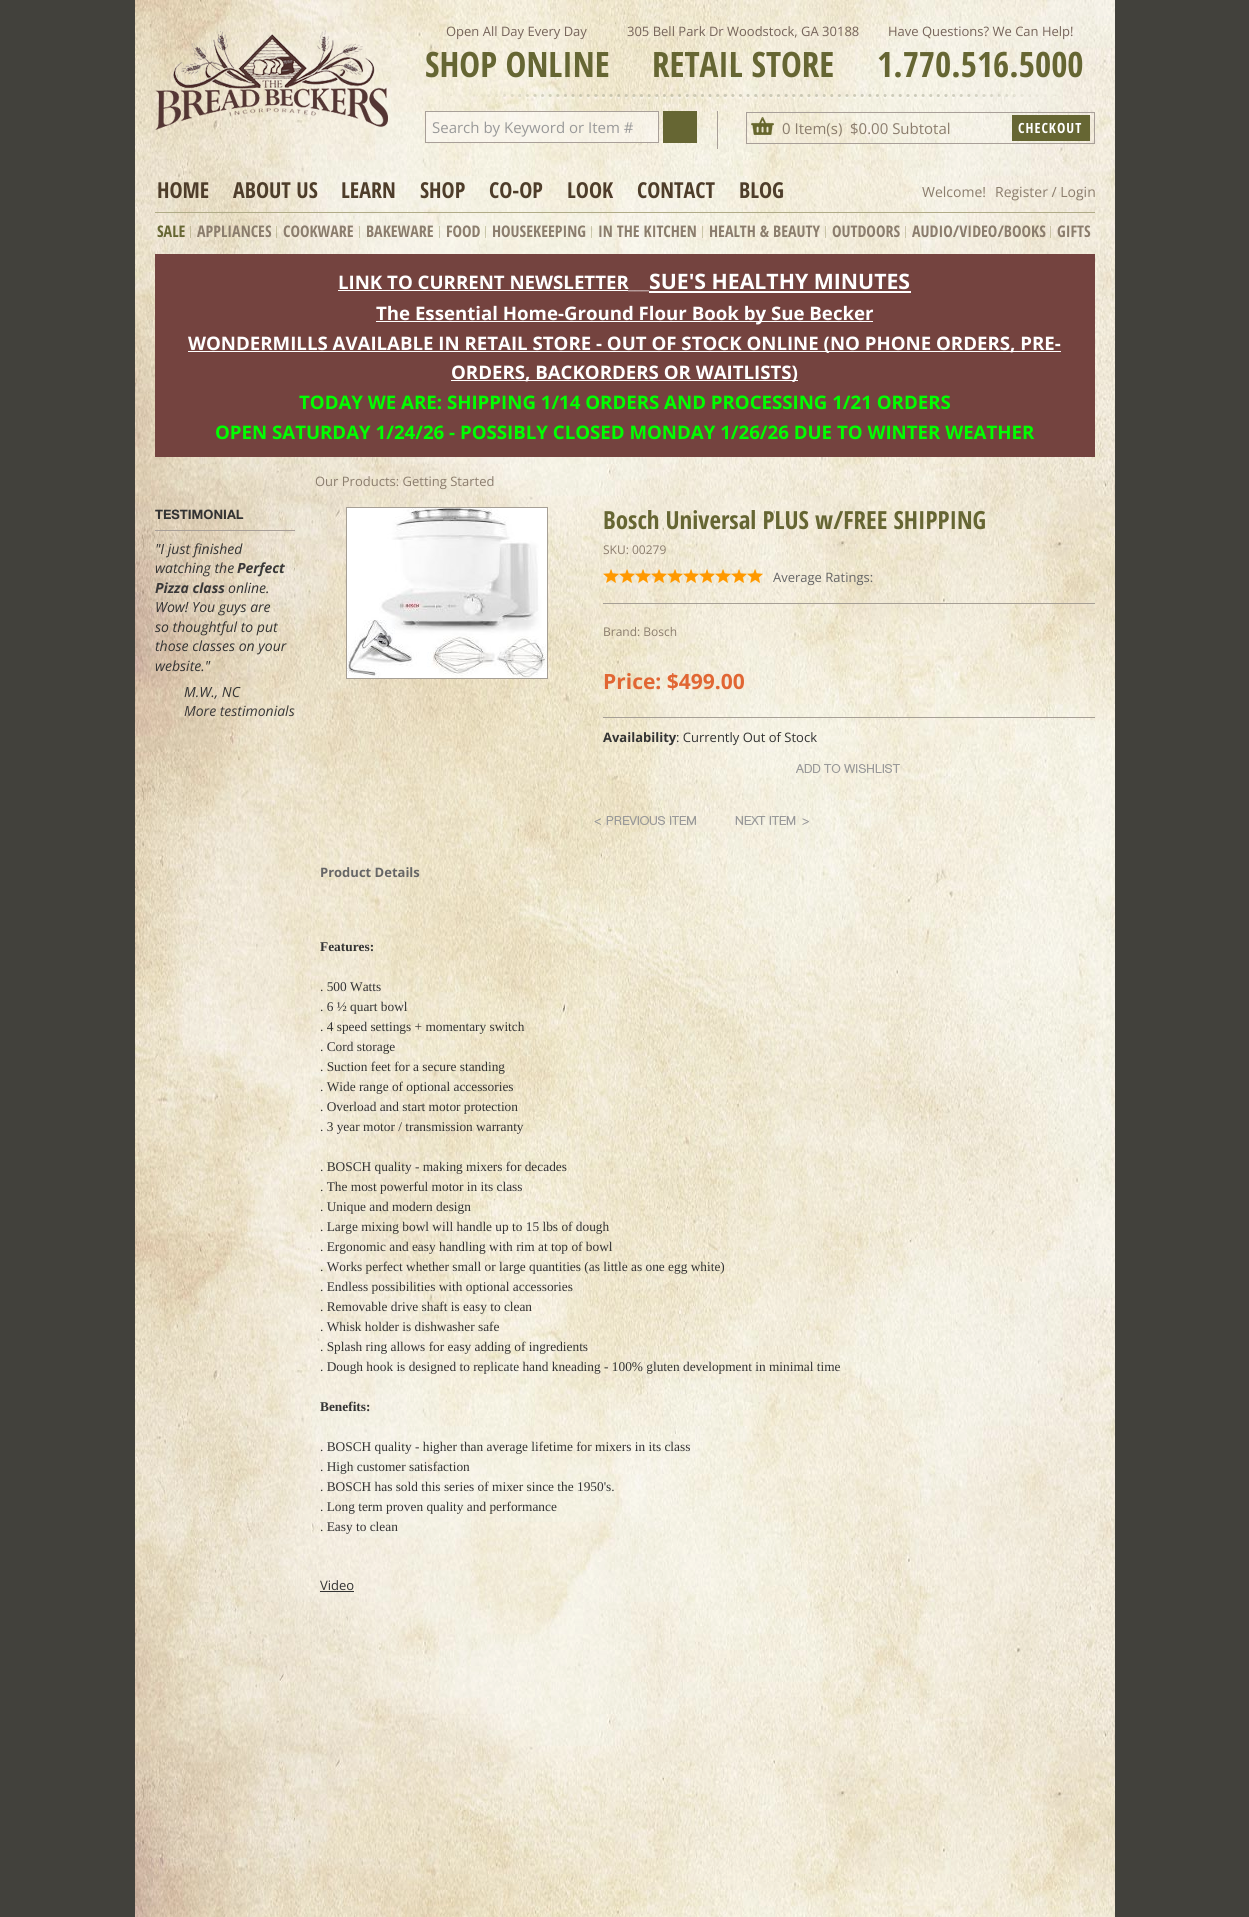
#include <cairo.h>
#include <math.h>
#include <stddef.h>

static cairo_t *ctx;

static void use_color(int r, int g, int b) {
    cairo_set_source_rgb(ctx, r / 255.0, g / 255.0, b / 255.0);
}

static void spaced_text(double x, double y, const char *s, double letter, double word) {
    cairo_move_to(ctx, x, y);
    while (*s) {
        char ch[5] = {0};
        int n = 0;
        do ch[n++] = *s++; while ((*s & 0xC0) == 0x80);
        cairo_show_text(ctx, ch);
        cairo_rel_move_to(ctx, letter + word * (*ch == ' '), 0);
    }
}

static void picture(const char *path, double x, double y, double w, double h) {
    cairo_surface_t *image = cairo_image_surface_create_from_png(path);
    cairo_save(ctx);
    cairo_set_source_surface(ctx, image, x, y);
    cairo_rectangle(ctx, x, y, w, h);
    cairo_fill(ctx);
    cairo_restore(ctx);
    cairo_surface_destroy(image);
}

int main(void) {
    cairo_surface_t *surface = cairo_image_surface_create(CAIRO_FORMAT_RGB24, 1249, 1917);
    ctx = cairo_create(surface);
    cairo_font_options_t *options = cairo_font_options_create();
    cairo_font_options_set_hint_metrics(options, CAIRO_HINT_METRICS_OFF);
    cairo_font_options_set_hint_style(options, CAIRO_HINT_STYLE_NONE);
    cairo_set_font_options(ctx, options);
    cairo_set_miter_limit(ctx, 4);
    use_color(66, 65, 60);
    cairo_paint(ctx);
    picture("img1.png", 135, 0, 980, 1917);
    picture("img2.png", 155, 30, 233, 100);
    picture("img3.png", 465, 94, 589, 5);
    cairo_select_font_face(ctx, "Open Sans", CAIRO_FONT_SLANT_NORMAL, CAIRO_FONT_WEIGHT_NORMAL);
    cairo_set_font_size(ctx, 13);
    use_color(118, 100, 90);
    cairo_move_to(ctx, 446, 36);
    cairo_show_text(ctx, "Open All Day Every Day");
    cairo_select_font_face(ctx, "Open Sans Condensed", CAIRO_FONT_SLANT_NORMAL, CAIRO_FONT_WEIGHT_BOLD);
    cairo_set_font_size(ctx, 35);
    use_color(102, 102, 51);
    cairo_move_to(ctx, 425, 77);
    cairo_show_text(ctx, "SHOP ONLINE");
    cairo_select_font_face(ctx, "Open Sans", CAIRO_FONT_SLANT_NORMAL, CAIRO_FONT_WEIGHT_NORMAL);
    cairo_set_font_size(ctx, 13);
    use_color(118, 100, 90);
    cairo_move_to(ctx, 627, 36);
    cairo_show_text(ctx, "305 Bell Park Dr Woodstock, GA 30188");
    cairo_select_font_face(ctx, "Open Sans Condensed", CAIRO_FONT_SLANT_NORMAL, CAIRO_FONT_WEIGHT_BOLD);
    cairo_set_font_size(ctx, 35);
    use_color(102, 102, 51);
    cairo_move_to(ctx, 652, 77);
    cairo_show_text(ctx, "RETAIL STORE");
    cairo_select_font_face(ctx, "Open Sans", CAIRO_FONT_SLANT_NORMAL, CAIRO_FONT_WEIGHT_NORMAL);
    cairo_set_font_size(ctx, 13);
    use_color(118, 100, 90);
    cairo_move_to(ctx, 888, 36);
    cairo_show_text(ctx, "Have Questions? We Can Help!");
    cairo_select_font_face(ctx, "Open Sans Condensed", CAIRO_FONT_SLANT_NORMAL, CAIRO_FONT_WEIGHT_BOLD);
    cairo_set_font_size(ctx, 35);
    use_color(102, 102, 51);
    cairo_move_to(ctx, 877, 77);
    cairo_show_text(ctx, "1.770.516.5000");
    use_color(168, 159, 152);
    cairo_rectangle(ctx, 717, 111, 1, 38);
    cairo_fill(ctx);
    cairo_set_source_rgba(ctx, 0.984, 0.973, 0.957, 0.6);
    cairo_rectangle(ctx, 425.5, 111.5, 233, 31);
    cairo_fill_preserve(ctx);
    use_color(168, 159, 152);
    cairo_set_line_width(ctx, 1);
    cairo_stroke(ctx);
    cairo_select_font_face(ctx, "Open Sans", CAIRO_FONT_SLANT_NORMAL, CAIRO_FONT_WEIGHT_NORMAL);
    cairo_set_font_size(ctx, 15);
    use_color(153, 153, 153);
    cairo_move_to(ctx, 432, 133);
    cairo_show_text(ctx, "Search by Keyword or Item #");
    use_color(102, 102, 51);
    cairo_rectangle(ctx, 663, 111, 34, 32);
    cairo_fill(ctx);
    picture("img4.png", 751, 117, 23, 18);
    cairo_rectangle(ctx, 746.5, 112.5, 348, 31);
    use_color(168, 159, 152);
    cairo_stroke(ctx);
    use_color(139, 125, 109);
    cairo_move_to(ctx, 782, 134);
    cairo_show_text(ctx, "0 Item(s)");
    cairo_move_to(ctx, 850, 134);
    cairo_show_text(ctx, "$0.00 Subtotal");
    use_color(102, 102, 51);
    cairo_rectangle(ctx, 1012, 115, 78, 26);
    cairo_fill(ctx);
    cairo_select_font_face(ctx, "Open Sans Condensed", CAIRO_FONT_SLANT_NORMAL, CAIRO_FONT_WEIGHT_BOLD);
    cairo_set_font_size(ctx, 14);
    use_color(255, 255, 255);
    spaced_text(1018, 133, "CHECKOUT", 1, 0);
    cairo_set_font_size(ctx, 22);
    use_color(78, 61, 42);
    cairo_move_to(ctx, 157, 198);
    cairo_show_text(ctx, "HOME");
    cairo_move_to(ctx, 233, 198);
    cairo_show_text(ctx, "ABOUT US");
    cairo_move_to(ctx, 341, 198);
    cairo_show_text(ctx, "LEARN");
    cairo_move_to(ctx, 420, 198);
    cairo_show_text(ctx, "SHOP");
    cairo_move_to(ctx, 489, 198);
    cairo_show_text(ctx, "CO-OP");
    cairo_move_to(ctx, 567, 198);
    cairo_show_text(ctx, "LOOK");
    cairo_move_to(ctx, 637, 198);
    cairo_show_text(ctx, "CONTACT");
    cairo_move_to(ctx, 739, 198);
    cairo_show_text(ctx, "BLOG");
    cairo_select_font_face(ctx, "Open Sans", CAIRO_FONT_SLANT_NORMAL, CAIRO_FONT_WEIGHT_NORMAL);
    cairo_set_font_size(ctx, 14);
    use_color(139, 125, 109);
    cairo_move_to(ctx, 922, 197);
    cairo_show_text(ctx, "Welcome!");
    cairo_move_to(ctx, 995, 197);
    cairo_show_text(ctx, "Register / Login");
    use_color(176, 171, 135);
    cairo_rectangle(ctx, 155, 212, 940, 1);
    cairo_fill(ctx);
    cairo_select_font_face(ctx, "Open Sans Condensed", CAIRO_FONT_SLANT_NORMAL, CAIRO_FONT_WEIGHT_BOLD);
    cairo_set_font_size(ctx, 16);
    use_color(102, 102, 51);
    cairo_move_to(ctx, 157, 237);
    cairo_show_text(ctx, "SALE");
    cairo_set_source_rgba(ctx, 0.404, 0.404, 0.169, 0.3);
    cairo_rectangle(ctx, 190, 226, 1, 12);
    cairo_fill(ctx);
    use_color(139, 125, 109);
    cairo_move_to(ctx, 197, 237);
    cairo_show_text(ctx, "APPLIANCES");
    cairo_set_source_rgba(ctx, 0.404, 0.404, 0.169, 0.3);
    cairo_rectangle(ctx, 276, 226, 1, 12);
    cairo_fill(ctx);
    use_color(139, 125, 109);
    cairo_move_to(ctx, 283, 237);
    cairo_show_text(ctx, "COOKWARE");
    cairo_set_source_rgba(ctx, 0.404, 0.404, 0.169, 0.3);
    cairo_rectangle(ctx, 359, 226, 1, 12);
    cairo_fill(ctx);
    use_color(139, 125, 109);
    cairo_move_to(ctx, 366, 237);
    cairo_show_text(ctx, "BAKEWARE");
    cairo_set_source_rgba(ctx, 0.404, 0.404, 0.169, 0.3);
    cairo_rectangle(ctx, 439, 226, 1, 12);
    cairo_fill(ctx);
    use_color(139, 125, 109);
    cairo_move_to(ctx, 446, 237);
    cairo_show_text(ctx, "FOOD");
    cairo_set_source_rgba(ctx, 0.404, 0.404, 0.169, 0.3);
    cairo_rectangle(ctx, 485, 226, 1, 12);
    cairo_fill(ctx);
    use_color(139, 125, 109);
    cairo_move_to(ctx, 492, 237);
    cairo_show_text(ctx, "HOUSEKEEPING");
    cairo_set_source_rgba(ctx, 0.404, 0.404, 0.169, 0.3);
    cairo_rectangle(ctx, 591, 226, 1, 12);
    cairo_fill(ctx);
    use_color(139, 125, 109);
    cairo_move_to(ctx, 598, 237);
    cairo_show_text(ctx, "IN THE KITCHEN");
    cairo_set_source_rgba(ctx, 0.404, 0.404, 0.169, 0.3);
    cairo_rectangle(ctx, 702, 226, 1, 12);
    cairo_fill(ctx);
    use_color(139, 125, 109);
    cairo_move_to(ctx, 709, 237);
    cairo_show_text(ctx, "HEALTH & BEAUTY");
    cairo_set_source_rgba(ctx, 0.404, 0.404, 0.169, 0.3);
    cairo_rectangle(ctx, 825, 226, 1, 12);
    cairo_fill(ctx);
    use_color(139, 125, 109);
    cairo_move_to(ctx, 832, 237);
    cairo_show_text(ctx, "OUTDOORS");
    cairo_set_source_rgba(ctx, 0.404, 0.404, 0.169, 0.3);
    cairo_rectangle(ctx, 905, 226, 1, 12);
    cairo_fill(ctx);
    use_color(139, 125, 109);
    cairo_move_to(ctx, 912, 237);
    cairo_show_text(ctx, "AUDIO/VIDEO/BOOKS");
    cairo_set_source_rgba(ctx, 0.404, 0.404, 0.169, 0.3);
    cairo_rectangle(ctx, 1050, 226, 1, 12);
    cairo_fill(ctx);
    use_color(139, 125, 109);
    cairo_move_to(ctx, 1057, 237);
    cairo_show_text(ctx, "GIFTS");
    use_color(116, 67, 63);
    cairo_rectangle(ctx, 155, 254, 940, 203);
    cairo_fill(ctx);
    cairo_select_font_face(ctx, "Open Sans", CAIRO_FONT_SLANT_NORMAL, CAIRO_FONT_WEIGHT_BOLD);
    cairo_set_font_size(ctx, 18.65);
    use_color(255, 255, 255);
    cairo_move_to(ctx, 338, 289);
    cairo_show_text(ctx, "LINK TO CURRENT NEWSLETTER");
    cairo_rectangle(ctx, 338, 290, 290, 1);
    cairo_fill(ctx);
    cairo_set_font_size(ctx, 21.25);
    cairo_move_to(ctx, 649, 289);
    cairo_show_text(ctx, "SUE'S HEALTHY MINUTES");
    cairo_rectangle(ctx, 649, 291, 262, 2);
    cairo_fill(ctx);
    cairo_select_font_face(ctx, "Open Sans Light", CAIRO_FONT_SLANT_NORMAL, CAIRO_FONT_WEIGHT_NORMAL);
    cairo_set_font_size(ctx, 17);
    cairo_move_to(ctx, 628, 289);
    cairo_show_text(ctx, "___");
    cairo_rectangle(ctx, 376, 321, 497, 1);
    cairo_fill(ctx);
    cairo_select_font_face(ctx, "Open Sans", CAIRO_FONT_SLANT_NORMAL, CAIRO_FONT_WEIGHT_BOLD);
    cairo_set_font_size(ctx, 18.65);
    cairo_move_to(ctx, 376, 320);
    cairo_show_text(ctx, "The Essential Home-Ground Flour Book by Sue Becker");
    cairo_rectangle(ctx, 188, 351, 873, 1);
    cairo_fill(ctx);
    cairo_move_to(ctx, 188, 350);
    cairo_show_text(ctx, "WONDERMILLS AVAILABLE IN RETAIL STORE - OUT OF STOCK ONLINE (NO PHONE ORDERS, PRE-");
    cairo_rectangle(ctx, 451, 380, 347, 1);
    cairo_fill(ctx);
    cairo_move_to(ctx, 451, 379);
    cairo_show_text(ctx, "ORDERS, BACKORDERS OR WAITLISTS)");
    use_color(0, 255, 0);
    cairo_move_to(ctx, 299, 409);
    cairo_show_text(ctx, "TODAY WE ARE: SHIPPING 1/14 ORDERS AND PROCESSING 1/21 ORDERS");
    cairo_move_to(ctx, 215, 439);
    cairo_show_text(ctx, "OPEN SATURDAY 1/24/26 - POSSIBLY CLOSED MONDAY 1/26/26 DUE TO WINTER WEATHER");
    use_color(168, 159, 152);
    cairo_rectangle(ctx, 155, 530, 140, 1);
    cairo_fill(ctx);
    cairo_select_font_face(ctx, "Helvetica Neue", CAIRO_FONT_SLANT_NORMAL, CAIRO_FONT_WEIGHT_BOLD);
    cairo_set_font_size(ctx, 13);
    use_color(51, 51, 51);
    cairo_move_to(ctx, 155, 519);
    cairo_show_text(ctx, "TESTIMONIAL");
    cairo_select_font_face(ctx, "Open Sans", CAIRO_FONT_SLANT_ITALIC, CAIRO_FONT_WEIGHT_NORMAL);
    cairo_set_font_size(ctx, 14);
    cairo_move_to(ctx, 155, 554);
    cairo_show_text(ctx, "\"I just finished");
    cairo_move_to(ctx, 155, 573);
    cairo_show_text(ctx, "watching the");
    cairo_select_font_face(ctx, "Open Sans", CAIRO_FONT_SLANT_ITALIC, CAIRO_FONT_WEIGHT_BOLD);
    use_color(58, 57, 57);
    cairo_move_to(ctx, 237, 573);
    cairo_show_text(ctx, "Perfect");
    cairo_move_to(ctx, 155, 593);
    cairo_show_text(ctx, "Pizza class");
    cairo_select_font_face(ctx, "Open Sans", CAIRO_FONT_SLANT_ITALIC, CAIRO_FONT_WEIGHT_NORMAL);
    use_color(51, 51, 51);
    cairo_move_to(ctx, 228, 593);
    cairo_show_text(ctx, "online.");
    cairo_move_to(ctx, 155, 612);
    cairo_show_text(ctx, "Wow! You guys are");
    cairo_move_to(ctx, 155, 632);
    cairo_show_text(ctx, "so thoughtful to put");
    cairo_move_to(ctx, 155, 651);
    cairo_show_text(ctx, "those classes on your");
    cairo_move_to(ctx, 155, 671);
    cairo_show_text(ctx, "website.\"");
    cairo_move_to(ctx, 184, 697);
    cairo_show_text(ctx, "M.W., NC");
    use_color(58, 57, 57);
    cairo_move_to(ctx, 184, 716);
    cairo_show_text(ctx, "More testimonials");
    cairo_select_font_face(ctx, "Open Sans", CAIRO_FONT_SLANT_NORMAL, CAIRO_FONT_WEIGHT_NORMAL);
    cairo_set_font_size(ctx, 13);
    use_color(139, 125, 109);
    cairo_move_to(ctx, 315, 486);
    cairo_show_text(ctx, "Our Products: Getting Started");
    cairo_rectangle(ctx, 346.5, 507.5, 201, 171);
    use_color(166, 159, 149);
    cairo_stroke(ctx);
    picture("img5.png", 347, 508, 200, 170);
    cairo_select_font_face(ctx, "Open Sans Condensed", CAIRO_FONT_SLANT_NORMAL, CAIRO_FONT_WEIGHT_BOLD);
    cairo_set_font_size(ctx, 25);
    use_color(102, 102, 51);
    cairo_move_to(ctx, 603, 529);
    cairo_show_text(ctx, "Bosch Universal PLUS w/FREE SHIPPING");
    cairo_select_font_face(ctx, "Open Sans", CAIRO_FONT_SLANT_NORMAL, CAIRO_FONT_WEIGHT_NORMAL);
    cairo_set_font_size(ctx, 12);
    use_color(139, 125, 109);
    cairo_move_to(ctx, 603, 554);
    cairo_show_text(ctx, "SKU: 00279");
    use_color(166, 159, 149);
    cairo_rectangle(ctx, 603, 603, 492, 1);
    cairo_fill(ctx);
    picture("img6.png", 603, 569, 16, 14);
    picture("img7.png", 619, 569, 16, 14);
    picture("img8.png", 635, 569, 16, 14);
    picture("img9.png", 651, 569, 16, 14);
    picture("img10.png", 667, 569, 16, 14);
    picture("img11.png", 683, 569, 16, 14);
    picture("img12.png", 699, 569, 16, 14);
    picture("img13.png", 715, 569, 16, 14);
    picture("img14.png", 731, 569, 16, 14);
    picture("img15.png", 747, 569, 16, 14);
    cairo_set_font_size(ctx, 13);
    use_color(102, 102, 102);
    cairo_move_to(ctx, 773, 582);
    cairo_show_text(ctx, "Average Ratings:");
    cairo_set_font_size(ctx, 12);
    use_color(139, 125, 109);
    cairo_move_to(ctx, 603, 636);
    cairo_show_text(ctx, "Brand: Bosch");
    use_color(166, 159, 149);
    cairo_rectangle(ctx, 603, 717, 492, 1);
    cairo_fill(ctx);
    cairo_select_font_face(ctx, "Open Sans", CAIRO_FONT_SLANT_NORMAL, CAIRO_FONT_WEIGHT_BOLD);
    cairo_set_font_size(ctx, 21);
    use_color(225, 102, 51);
    cairo_move_to(ctx, 603, 689);
    cairo_show_text(ctx, "Price: $499.00");
    cairo_set_font_size(ctx, 13);
    use_color(51, 51, 51);
    cairo_move_to(ctx, 603, 742);
    cairo_show_text(ctx, "Availability");
    cairo_select_font_face(ctx, "Open Sans", CAIRO_FONT_SLANT_NORMAL, CAIRO_FONT_WEIGHT_NORMAL);
    cairo_move_to(ctx, 676, 742);
    cairo_show_text(ctx, ": Currently Out of Stock");
    picture("img16.png", 795, 764, 105, 9);
    picture("img17.png", 594, 816, 102, 9);
    picture("img18.png", 735, 816, 74, 9);
    cairo_select_font_face(ctx, "Open Sans", CAIRO_FONT_SLANT_NORMAL, CAIRO_FONT_WEIGHT_BOLD);
    use_color(102, 102, 102);
    cairo_move_to(ctx, 320, 877);
    cairo_show_text(ctx, "Product Details");
    cairo_select_font_face(ctx, "Liberation Serif", CAIRO_FONT_SLANT_NORMAL, CAIRO_FONT_WEIGHT_BOLD);
    cairo_set_font_size(ctx, 13.35);
    use_color(51, 51, 51);
    cairo_move_to(ctx, 320, 951);
    cairo_show_text(ctx, "Features:");
    cairo_select_font_face(ctx, "Liberation Serif", CAIRO_FONT_SLANT_NORMAL, CAIRO_FONT_WEIGHT_NORMAL);
    cairo_move_to(ctx, 320, 991);
    cairo_show_text(ctx, ". 500 Watts");
    cairo_move_to(ctx, 320, 1011);
    cairo_show_text(ctx, ". 6 ½ quart bowl");
    cairo_move_to(ctx, 320, 1031);
    cairo_show_text(ctx, ". 4 speed settings + momentary switch");
    cairo_move_to(ctx, 320, 1051);
    cairo_show_text(ctx, ". Cord storage");
    cairo_move_to(ctx, 320, 1071);
    cairo_show_text(ctx, ". Suction feet for a secure standing");
    cairo_move_to(ctx, 320, 1091);
    cairo_show_text(ctx, ". Wide range of optional accessories");
    cairo_move_to(ctx, 320, 1111);
    cairo_show_text(ctx, ". Overload and start motor protection");
    cairo_move_to(ctx, 320, 1131);
    cairo_show_text(ctx, ". 3 year motor / transmission warranty");
    cairo_move_to(ctx, 320, 1171);
    cairo_show_text(ctx, ". BOSCH quality - making mixers for decades");
    cairo_move_to(ctx, 320, 1191);
    cairo_show_text(ctx, ". The most powerful motor in its class");
    cairo_move_to(ctx, 320, 1211);
    cairo_show_text(ctx, ". Unique and modern design");
    cairo_move_to(ctx, 320, 1231);
    cairo_show_text(ctx, ". Large mixing bowl will handle up to 15 lbs of dough");
    cairo_move_to(ctx, 320, 1251);
    cairo_show_text(ctx, ". Ergonomic and easy handling with rim at top of bowl");
    cairo_move_to(ctx, 320, 1271);
    cairo_show_text(ctx, ". Works perfect whether small or large quantities (as little as one egg white)");
    cairo_move_to(ctx, 320, 1291);
    cairo_show_text(ctx, ". Endless possibilities with optional accessories");
    cairo_move_to(ctx, 320, 1311);
    cairo_show_text(ctx, ". Removable drive shaft is easy to clean");
    cairo_move_to(ctx, 320, 1331);
    cairo_show_text(ctx, ". Whisk holder is dishwasher safe");
    cairo_move_to(ctx, 320, 1351);
    cairo_show_text(ctx, ". Splash ring allows for easy adding of ingredients");
    cairo_move_to(ctx, 320, 1371);
    cairo_show_text(ctx, ". Dough hook is designed to replicate hand kneading - 100% gluten development in minimal time");
    cairo_select_font_face(ctx, "Liberation Serif", CAIRO_FONT_SLANT_NORMAL, CAIRO_FONT_WEIGHT_BOLD);
    cairo_move_to(ctx, 320, 1411);
    cairo_show_text(ctx, "Benefits:");
    cairo_select_font_face(ctx, "Liberation Serif", CAIRO_FONT_SLANT_NORMAL, CAIRO_FONT_WEIGHT_NORMAL);
    cairo_move_to(ctx, 320, 1451);
    cairo_show_text(ctx, ". BOSCH quality - higher than average lifetime for mixers in its class");
    cairo_move_to(ctx, 320, 1471);
    cairo_show_text(ctx, ". High customer satisfaction");
    cairo_move_to(ctx, 320, 1491);
    cairo_show_text(ctx, ". BOSCH has sold this series of mixer since the 1950's.");
    cairo_move_to(ctx, 320, 1511);
    cairo_show_text(ctx, ". Long term proven quality and performance");
    cairo_move_to(ctx, 320, 1531);
    cairo_show_text(ctx, ". Easy to clean");
    cairo_select_font_face(ctx, "Open Sans", CAIRO_FONT_SLANT_NORMAL, CAIRO_FONT_WEIGHT_NORMAL);
    cairo_set_font_size(ctx, 13);
    cairo_move_to(ctx, 320, 1590);
    cairo_show_text(ctx, "Video");
    cairo_rectangle(ctx, 320, 1591, 34, 1);
    cairo_fill(ctx);
    cairo_surface_write_to_png(surface, "result.png");
    cairo_font_options_destroy(options);
    cairo_destroy(ctx);
    cairo_surface_destroy(surface);
    return 0;
}
